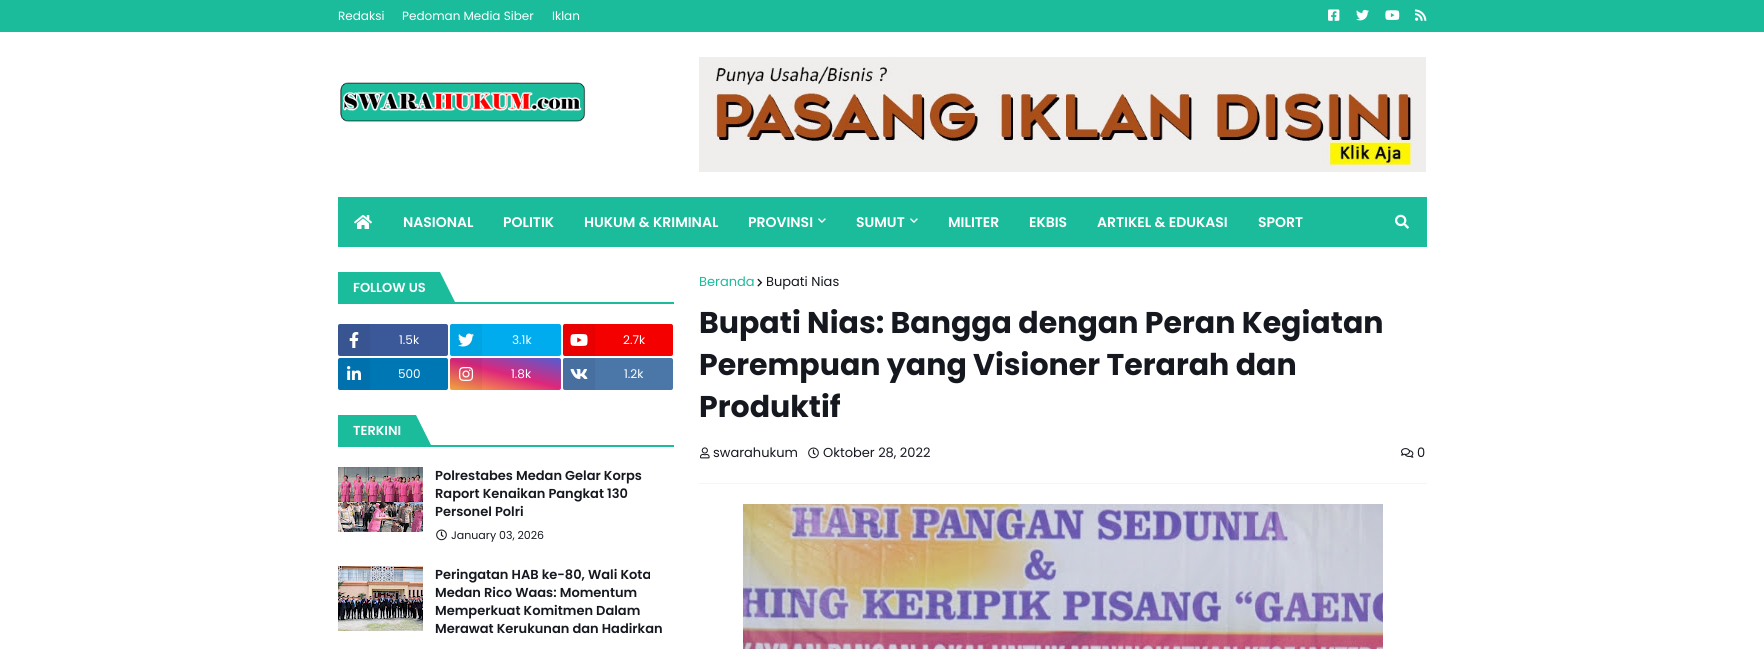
#include <cairo.h>
#include <math.h>
#include <stddef.h>

static cairo_t *ctx;

static void use_color(int r, int g, int b) {
    cairo_set_source_rgb(ctx, r / 255.0, g / 255.0, b / 255.0);
}

static void round_rect(double x, double y, double w, double h, double r) {
    cairo_new_sub_path(ctx);
    cairo_arc(ctx, x + w - r, y + h - r, r, 0, M_PI / 2);
    cairo_arc(ctx, x + r, y + h - r, r, M_PI / 2, M_PI);
    cairo_arc(ctx, x + r, y + r, r, M_PI, 1.5 * M_PI);
    cairo_arc(ctx, x + w - r, y + r, r, 1.5 * M_PI, 2 * M_PI);
    cairo_close_path(ctx);
}

static void picture(const char *path, double x, double y, double w, double h) {
    cairo_surface_t *image = cairo_image_surface_create_from_png(path);
    cairo_save(ctx);
    cairo_set_source_surface(ctx, image, x, y);
    cairo_rectangle(ctx, x, y, w, h);
    cairo_fill(ctx);
    cairo_restore(ctx);
    cairo_surface_destroy(image);
}

int main(void) {
    cairo_surface_t *surface = cairo_image_surface_create(CAIRO_FORMAT_RGB24, 1764, 649);
    ctx = cairo_create(surface);
    cairo_font_options_t *options = cairo_font_options_create();
    cairo_font_options_set_hint_metrics(options, CAIRO_HINT_METRICS_OFF);
    cairo_font_options_set_hint_style(options, CAIRO_HINT_STYLE_NONE);
    cairo_set_font_options(ctx, options);
    cairo_set_miter_limit(ctx, 4);
    cairo_pattern_t *gradient;
    use_color(255, 255, 255);
    cairo_paint(ctx);
    use_color(26, 188, 156);
    cairo_rectangle(ctx, 0, 0, 1764, 32);
    cairo_fill(ctx);
    cairo_select_font_face(ctx, "Poppins", CAIRO_FONT_SLANT_NORMAL, CAIRO_FONT_WEIGHT_NORMAL);
    cairo_set_font_size(ctx, 12);
    use_color(255, 255, 255);
    cairo_move_to(ctx, 338, 20);
    cairo_show_text(ctx, "Redaksi");
    cairo_move_to(ctx, 402, 20);
    cairo_show_text(ctx, "Pedoman Media Siber");
    cairo_move_to(ctx, 552, 20);
    cairo_show_text(ctx, "Iklan");
    picture("img1.png", 1328, 9, 12, 12);
    picture("img2.png", 1356, 9, 13, 12);
    picture("img3.png", 1385, 10, 15, 10);
    picture("img4.png", 1415, 9, 12, 12);
    picture("img5.png", 340, 82, 246, 40);
    picture("img6.png", 699, 57, 727, 115);
    use_color(26, 188, 156);
    cairo_rectangle(ctx, 338, 197, 1089, 50);
    cairo_fill(ctx);
    picture("img7.png", 354, 215, 18, 14);
    cairo_select_font_face(ctx, "Poppins SemiBold", CAIRO_FONT_SLANT_NORMAL, CAIRO_FONT_WEIGHT_NORMAL);
    cairo_set_font_size(ctx, 14);
    use_color(255, 255, 255);
    cairo_move_to(ctx, 403, 227);
    cairo_show_text(ctx, "NASIONAL");
    cairo_move_to(ctx, 503, 227);
    cairo_show_text(ctx, "POLITIK");
    cairo_move_to(ctx, 584, 227);
    cairo_show_text(ctx, "HUKUM & KRIMINAL");
    cairo_move_to(ctx, 748, 227);
    cairo_show_text(ctx, "PROVINSI");
    picture("img8.png", 818, 218, 8, 5);
    cairo_move_to(ctx, 856, 227);
    cairo_show_text(ctx, "SUMUT");
    picture("img8.png", 910, 218, 8, 5);
    cairo_move_to(ctx, 948, 227);
    cairo_show_text(ctx, "MILITER");
    cairo_move_to(ctx, 1029, 227);
    cairo_show_text(ctx, "EKBIS");
    cairo_move_to(ctx, 1097, 227);
    cairo_show_text(ctx, "ARTIKEL & EDUKASI");
    cairo_move_to(ctx, 1258, 227);
    cairo_show_text(ctx, "SPORT");
    picture("img9.png", 1395, 214, 14, 15);
    use_color(26, 188, 156);
    cairo_rectangle(ctx, 455, 302, 219, 2);
    cairo_fill(ctx);
    cairo_rectangle(ctx, 338, 272, 102, 32);
    cairo_fill(ctx);
    cairo_set_font_size(ctx, 13);
    use_color(255, 255, 255);
    cairo_move_to(ctx, 353, 292);
    cairo_show_text(ctx, "FOLLOW US");
    use_color(26, 188, 156);
    cairo_new_path(ctx);
    cairo_move_to(ctx, 440, 304);
    cairo_line_to(ctx, 440, 272);
    cairo_line_to(ctx, 456, 304);
    cairo_close_path(ctx);
    cairo_fill(ctx);
    use_color(59, 89, 153);
    round_rect(338, 324, 110, 32, 2);
    cairo_fill(ctx);
    cairo_set_source_rgba(ctx, 0, 0, 0, 0.05);
    cairo_rectangle(ctx, 338, 324, 32, 32);
    cairo_fill(ctx);
    picture("img10.png", 349, 332, 10, 16);
    cairo_select_font_face(ctx, "Poppins", CAIRO_FONT_SLANT_NORMAL, CAIRO_FONT_WEIGHT_NORMAL);
    cairo_set_font_size(ctx, 12);
    use_color(255, 255, 255);
    cairo_move_to(ctx, 399, 344);
    cairo_show_text(ctx, "1.5k");
    use_color(0, 172, 238);
    round_rect(450, 324, 111, 32, 2);
    cairo_fill(ctx);
    cairo_set_source_rgba(ctx, 0, 0, 0, 0.05);
    cairo_rectangle(ctx, 450, 324, 32, 32);
    cairo_fill(ctx);
    picture("img11.png", 458, 333, 16, 14);
    use_color(255, 255, 255);
    cairo_move_to(ctx, 512, 344);
    cairo_show_text(ctx, "3.1k");
    use_color(245, 0, 0);
    round_rect(563, 324, 110, 32, 2);
    cairo_fill(ctx);
    cairo_set_source_rgba(ctx, 0, 0, 0, 0.05);
    cairo_rectangle(ctx, 563, 324, 32, 32);
    cairo_fill(ctx);
    picture("img12.png", 570, 334, 18, 12);
    use_color(255, 255, 255);
    cairo_move_to(ctx, 623, 344);
    cairo_show_text(ctx, "2.7k");
    use_color(0, 119, 181);
    round_rect(338, 358, 110, 32, 2);
    cairo_fill(ctx);
    cairo_set_source_rgba(ctx, 0, 0, 0, 0.05);
    cairo_rectangle(ctx, 338, 358, 32, 32);
    cairo_fill(ctx);
    picture("img13.png", 347, 366, 14, 14);
    use_color(255, 255, 255);
    cairo_move_to(ctx, 398, 378);
    cairo_show_text(ctx, "500");
    gradient = cairo_pattern_create_linear(498, 403, 513, 345);
    cairo_pattern_add_color_stop_rgba(gradient, 0, 1, 0.694, 0.239, 1);
    cairo_pattern_add_color_stop_rgba(gradient, 0.5, 0.867, 0.153, 0.482, 1);
    cairo_pattern_add_color_stop_rgba(gradient, 1, 0.302, 0.369, 0.831, 1);
    cairo_set_source(ctx, gradient);
    cairo_pattern_destroy(gradient);
    round_rect(450, 358, 111, 32, 2);
    cairo_fill(ctx);
    cairo_set_source_rgba(ctx, 0, 0, 0, 0.05);
    cairo_rectangle(ctx, 450, 358, 32, 32);
    cairo_fill(ctx);
    picture("img14.png", 459, 367, 15, 14);
    use_color(255, 255, 255);
    cairo_move_to(ctx, 511, 378);
    cairo_show_text(ctx, "1.8k");
    use_color(74, 118, 168);
    round_rect(563, 358, 110, 32, 2);
    cairo_fill(ctx);
    cairo_set_source_rgba(ctx, 0, 0, 0, 0.05);
    cairo_rectangle(ctx, 563, 358, 32, 32);
    cairo_fill(ctx);
    picture("img15.png", 570, 369, 18, 10);
    use_color(255, 255, 255);
    cairo_move_to(ctx, 624, 378);
    cairo_show_text(ctx, "1.2k");
    use_color(26, 188, 156);
    cairo_rectangle(ctx, 431, 445, 243, 2);
    cairo_fill(ctx);
    cairo_rectangle(ctx, 338, 415, 78, 32);
    cairo_fill(ctx);
    cairo_select_font_face(ctx, "Poppins SemiBold", CAIRO_FONT_SLANT_NORMAL, CAIRO_FONT_WEIGHT_NORMAL);
    cairo_set_font_size(ctx, 13);
    use_color(255, 255, 255);
    cairo_move_to(ctx, 353, 435);
    cairo_show_text(ctx, "TERKINI");
    use_color(26, 188, 156);
    cairo_new_path(ctx);
    cairo_move_to(ctx, 416, 447);
    cairo_line_to(ctx, 416, 415);
    cairo_line_to(ctx, 432, 447);
    cairo_close_path(ctx);
    cairo_fill(ctx);
    picture("img16.png", 338, 467, 85, 65);
    use_color(21, 24, 31);
    cairo_move_to(ctx, 435, 480);
    cairo_show_text(ctx, "Polrestabes Medan Gelar Korps");
    cairo_move_to(ctx, 435, 498);
    cairo_show_text(ctx, "Raport Kenaikan Pangkat 130");
    cairo_move_to(ctx, 435, 516);
    cairo_show_text(ctx, "Personel Polri");
    picture("img17.png", 436, 529, 11, 12);
    cairo_select_font_face(ctx, "Poppins", CAIRO_FONT_SLANT_NORMAL, CAIRO_FONT_WEIGHT_NORMAL);
    cairo_set_font_size(ctx, 11);
    cairo_move_to(ctx, 451, 539);
    cairo_show_text(ctx, "January 03, 2026");
    picture("img18.png", 338, 566, 85, 65);
    cairo_select_font_face(ctx, "Poppins SemiBold", CAIRO_FONT_SLANT_NORMAL, CAIRO_FONT_WEIGHT_NORMAL);
    cairo_set_font_size(ctx, 13);
    cairo_move_to(ctx, 435, 579);
    cairo_show_text(ctx, "Peringatan HAB ke-80, Wali Kota");
    cairo_move_to(ctx, 435, 597);
    cairo_show_text(ctx, "Medan Rico Waas: Momentum");
    cairo_move_to(ctx, 435, 615);
    cairo_show_text(ctx, "Memperkuat Komitmen Dalam");
    cairo_move_to(ctx, 435, 633);
    cairo_show_text(ctx, "Merawat Kerukunan dan Hadirkan");
    use_color(245, 245, 245);
    cairo_rectangle(ctx, 699, 483, 728, 1);
    cairo_fill(ctx);
    cairo_select_font_face(ctx, "Poppins", CAIRO_FONT_SLANT_NORMAL, CAIRO_FONT_WEIGHT_NORMAL);
    use_color(26, 188, 156);
    cairo_move_to(ctx, 699, 286);
    cairo_show_text(ctx, "Beranda");
    picture("img19.png", 757, 278, 6, 9);
    use_color(21, 24, 31);
    cairo_move_to(ctx, 766, 286);
    cairo_show_text(ctx, "Bupati Nias");
    cairo_select_font_face(ctx, "Poppins", CAIRO_FONT_SLANT_NORMAL, CAIRO_FONT_WEIGHT_BOLD);
    cairo_set_font_size(ctx, 30);
    cairo_move_to(ctx, 699, 333);
    cairo_show_text(ctx, "Bupati Nias: Bangga dengan Peran Kegiatan");
    cairo_move_to(ctx, 699, 375);
    cairo_show_text(ctx, "Perempuan yang Visioner Terarah dan");
    cairo_move_to(ctx, 699, 417);
    cairo_show_text(ctx, "Produktif");
    picture("img20.png", 700, 447, 10, 12);
    cairo_select_font_face(ctx, "Poppins", CAIRO_FONT_SLANT_NORMAL, CAIRO_FONT_WEIGHT_NORMAL);
    cairo_set_font_size(ctx, 13);
    cairo_move_to(ctx, 713, 457);
    cairo_show_text(ctx, "swarahukum");
    picture("img17.png", 808, 447, 11, 12);
    cairo_move_to(ctx, 823, 457);
    cairo_show_text(ctx, "Oktober 28, 2022");
    picture("img21.png", 1401, 448, 13, 10);
    cairo_move_to(ctx, 1417, 457);
    cairo_show_text(ctx, "0");
    picture("img22.png", 743, 504, 640, 145);
    cairo_surface_write_to_png(surface, "result.png");
    cairo_font_options_destroy(options);
    cairo_destroy(ctx);
    cairo_surface_destroy(surface);
    return 0;
}
